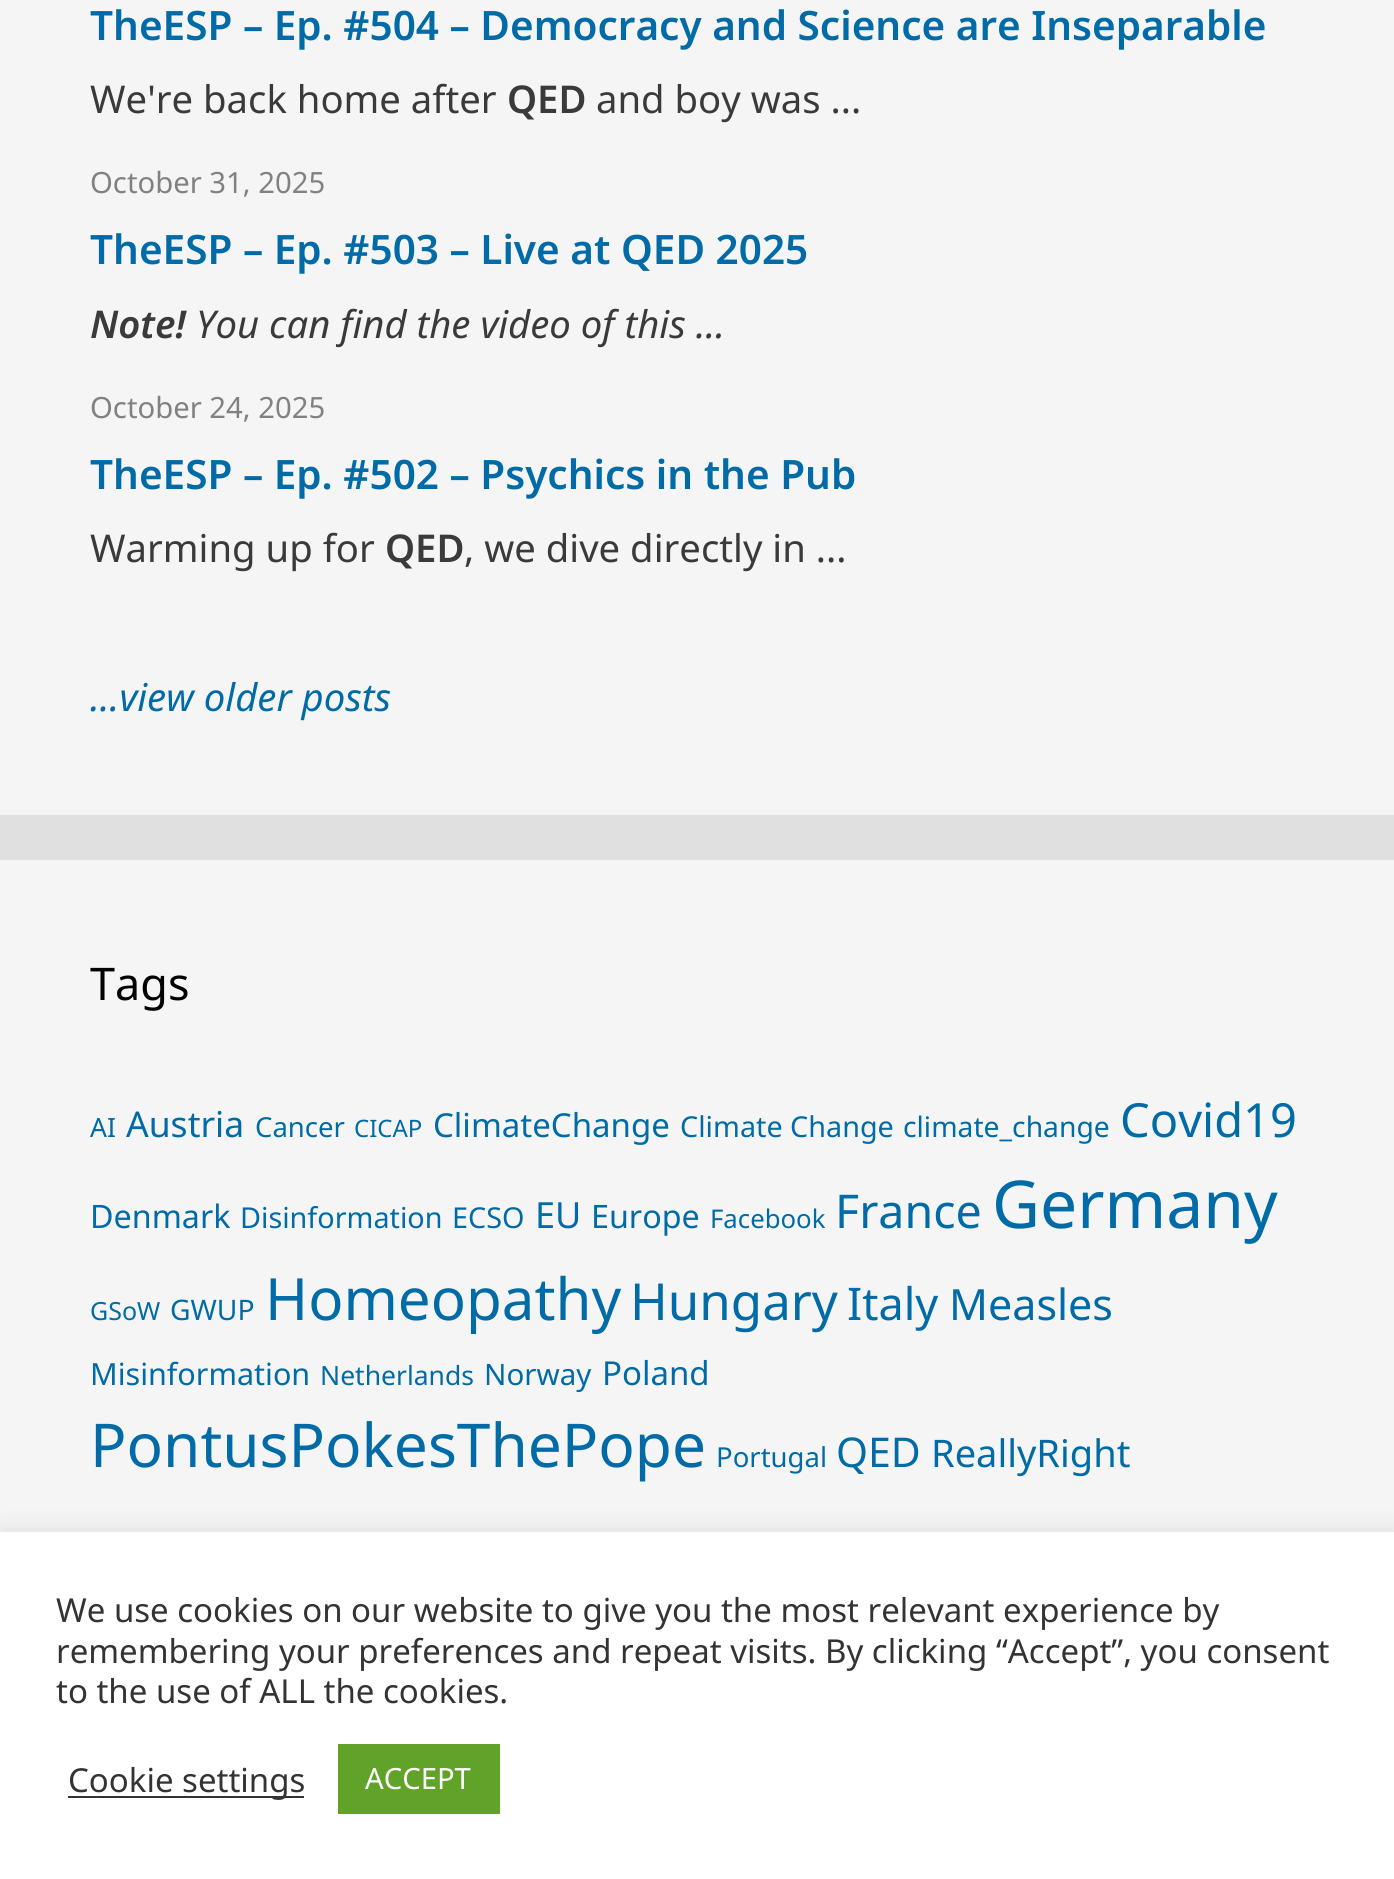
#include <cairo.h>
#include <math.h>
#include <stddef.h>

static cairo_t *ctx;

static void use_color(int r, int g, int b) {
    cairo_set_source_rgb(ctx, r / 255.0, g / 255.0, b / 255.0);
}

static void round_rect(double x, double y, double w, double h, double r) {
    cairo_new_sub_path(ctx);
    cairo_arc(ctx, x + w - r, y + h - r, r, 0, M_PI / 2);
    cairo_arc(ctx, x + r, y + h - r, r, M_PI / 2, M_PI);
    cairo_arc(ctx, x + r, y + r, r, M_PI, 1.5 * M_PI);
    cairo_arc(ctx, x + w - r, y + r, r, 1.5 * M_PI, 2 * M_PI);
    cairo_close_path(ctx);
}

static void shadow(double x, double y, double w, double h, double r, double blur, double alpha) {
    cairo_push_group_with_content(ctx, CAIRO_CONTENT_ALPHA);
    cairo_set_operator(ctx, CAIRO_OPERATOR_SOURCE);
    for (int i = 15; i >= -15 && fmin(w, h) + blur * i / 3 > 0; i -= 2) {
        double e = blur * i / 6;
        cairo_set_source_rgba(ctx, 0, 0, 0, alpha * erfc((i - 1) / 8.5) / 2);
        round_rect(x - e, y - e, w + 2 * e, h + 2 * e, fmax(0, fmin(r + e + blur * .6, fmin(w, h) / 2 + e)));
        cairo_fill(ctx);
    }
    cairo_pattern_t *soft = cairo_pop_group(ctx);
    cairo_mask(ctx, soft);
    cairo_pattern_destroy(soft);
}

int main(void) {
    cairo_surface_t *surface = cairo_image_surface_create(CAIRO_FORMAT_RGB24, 1394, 1879);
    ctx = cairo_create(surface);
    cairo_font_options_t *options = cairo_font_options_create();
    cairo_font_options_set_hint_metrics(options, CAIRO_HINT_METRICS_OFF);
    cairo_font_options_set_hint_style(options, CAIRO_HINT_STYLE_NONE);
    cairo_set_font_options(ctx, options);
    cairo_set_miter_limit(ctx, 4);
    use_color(224, 224, 224);
    cairo_paint(ctx);
    use_color(245, 245, 245);
    cairo_rectangle(ctx, 0, 0, 1394, 815);
    cairo_fill(ctx);
    cairo_select_font_face(ctx, "Noto Sans SemiBold", CAIRO_FONT_SLANT_NORMAL, CAIRO_FONT_WEIGHT_NORMAL);
    cairo_set_font_size(ctx, 40.5);
    use_color(0, 107, 166);
    cairo_move_to(ctx, 90, 40);
    cairo_show_text(ctx, "TheESP – Ep. #504 – Democracy and Science are Inseparable");
    cairo_select_font_face(ctx, "Noto Sans", CAIRO_FONT_SLANT_NORMAL, CAIRO_FONT_WEIGHT_NORMAL);
    cairo_set_font_size(ctx, 38.25);
    use_color(58, 58, 58);
    cairo_move_to(ctx, 90, 113);
    cairo_show_text(ctx, "We're back home after");
    cairo_select_font_face(ctx, "Noto Sans SemiBold", CAIRO_FONT_SLANT_NORMAL, CAIRO_FONT_WEIGHT_NORMAL);
    cairo_move_to(ctx, 507, 113);
    cairo_show_text(ctx, "QED");
    cairo_select_font_face(ctx, "Noto Sans", CAIRO_FONT_SLANT_NORMAL, CAIRO_FONT_WEIGHT_NORMAL);
    cairo_move_to(ctx, 596, 113);
    cairo_show_text(ctx, "and boy was ...");
    cairo_set_font_size(ctx, 29.25);
    use_color(129, 129, 129);
    cairo_move_to(ctx, 90, 193);
    cairo_show_text(ctx, "October 31, 2025");
    cairo_select_font_face(ctx, "Noto Sans SemiBold", CAIRO_FONT_SLANT_NORMAL, CAIRO_FONT_WEIGHT_NORMAL);
    cairo_set_font_size(ctx, 40.5);
    use_color(0, 107, 166);
    cairo_move_to(ctx, 90, 264);
    cairo_show_text(ctx, "TheESP – Ep. #503 – Live at QED 2025");
    cairo_select_font_face(ctx, "Noto Sans SemiBold", CAIRO_FONT_SLANT_ITALIC, CAIRO_FONT_WEIGHT_NORMAL);
    cairo_set_font_size(ctx, 38.25);
    use_color(58, 58, 58);
    cairo_move_to(ctx, 90, 338);
    cairo_show_text(ctx, "Note!");
    cairo_select_font_face(ctx, "Noto Sans", CAIRO_FONT_SLANT_ITALIC, CAIRO_FONT_WEIGHT_NORMAL);
    cairo_move_to(ctx, 196, 338);
    cairo_show_text(ctx, "You can find the video of this ...");
    cairo_select_font_face(ctx, "Noto Sans", CAIRO_FONT_SLANT_NORMAL, CAIRO_FONT_WEIGHT_NORMAL);
    cairo_set_font_size(ctx, 29.25);
    use_color(129, 129, 129);
    cairo_move_to(ctx, 90, 418);
    cairo_show_text(ctx, "October 24, 2025");
    cairo_select_font_face(ctx, "Noto Sans SemiBold", CAIRO_FONT_SLANT_NORMAL, CAIRO_FONT_WEIGHT_NORMAL);
    cairo_set_font_size(ctx, 40.5);
    use_color(0, 107, 166);
    cairo_move_to(ctx, 90, 489);
    cairo_show_text(ctx, "TheESP – Ep. #502 – Psychics in the Pub");
    cairo_select_font_face(ctx, "Noto Sans", CAIRO_FONT_SLANT_NORMAL, CAIRO_FONT_WEIGHT_NORMAL);
    cairo_set_font_size(ctx, 38.25);
    use_color(58, 58, 58);
    cairo_move_to(ctx, 90, 562);
    cairo_show_text(ctx, "Warming up for");
    cairo_select_font_face(ctx, "Noto Sans SemiBold", CAIRO_FONT_SLANT_NORMAL, CAIRO_FONT_WEIGHT_NORMAL);
    cairo_move_to(ctx, 385, 562);
    cairo_show_text(ctx, "QED");
    cairo_select_font_face(ctx, "Noto Sans", CAIRO_FONT_SLANT_NORMAL, CAIRO_FONT_WEIGHT_NORMAL);
    cairo_move_to(ctx, 464, 562);
    cairo_show_text(ctx, ", we dive directly in ...");
    cairo_select_font_face(ctx, "Noto Sans", CAIRO_FONT_SLANT_ITALIC, CAIRO_FONT_WEIGHT_NORMAL);
    use_color(0, 107, 166);
    cairo_move_to(ctx, 90, 711);
    cairo_show_text(ctx, "...view older posts");
    use_color(245, 245, 245);
    cairo_rectangle(ctx, 0, 860, 1394, 672);
    cairo_fill(ctx);
    cairo_select_font_face(ctx, "Noto Sans", CAIRO_FONT_SLANT_NORMAL, CAIRO_FONT_WEIGHT_NORMAL);
    cairo_set_font_size(ctx, 45);
    use_color(0, 0, 0);
    cairo_move_to(ctx, 90, 1000);
    cairo_show_text(ctx, "Tags");
    cairo_set_font_size(ctx, 26.5);
    use_color(0, 107, 166);
    cairo_move_to(ctx, 90, 1137);
    cairo_show_text(ctx, "AI");
    cairo_set_font_size(ctx, 35.5);
    cairo_move_to(ctx, 126, 1137);
    cairo_show_text(ctx, "Austria");
    cairo_set_font_size(ctx, 27.5);
    cairo_move_to(ctx, 255, 1137);
    cairo_show_text(ctx, "Cancer");
    cairo_set_font_size(ctx, 24);
    cairo_move_to(ctx, 354, 1137);
    cairo_show_text(ctx, "CICAP");
    cairo_set_font_size(ctx, 33);
    cairo_move_to(ctx, 433, 1137);
    cairo_show_text(ctx, "ClimateChange");
    cairo_set_font_size(ctx, 28.75);
    cairo_move_to(ctx, 680, 1137);
    cairo_show_text(ctx, "Climate Change");
    cairo_set_font_size(ctx, 28.25);
    cairo_move_to(ctx, 903, 1137);
    cairo_show_text(ctx, "climate_change");
    cairo_set_font_size(ctx, 47);
    cairo_move_to(ctx, 1120, 1137);
    cairo_show_text(ctx, "Covid19");
    cairo_set_font_size(ctx, 32.25);
    cairo_move_to(ctx, 90, 1228);
    cairo_show_text(ctx, "Denmark");
    cairo_set_font_size(ctx, 28.75);
    cairo_move_to(ctx, 240, 1228);
    cairo_show_text(ctx, "Disinformation");
    cairo_move_to(ctx, 452, 1228);
    cairo_show_text(ctx, "ECSO");
    cairo_set_font_size(ctx, 36);
    cairo_move_to(ctx, 535, 1228);
    cairo_show_text(ctx, "EU");
    cairo_set_font_size(ctx, 32.25);
    cairo_move_to(ctx, 591, 1228);
    cairo_show_text(ctx, "Europe");
    cairo_set_font_size(ctx, 25.75);
    cairo_move_to(ctx, 710, 1228);
    cairo_show_text(ctx, "Facebook");
    cairo_set_font_size(ctx, 46.5);
    cairo_move_to(ctx, 835, 1228);
    cairo_show_text(ctx, "France");
    cairo_set_font_size(ctx, 66);
    cairo_move_to(ctx, 992, 1228);
    cairo_show_text(ctx, "Germany");
    cairo_set_font_size(ctx, 25);
    cairo_move_to(ctx, 90, 1320);
    cairo_show_text(ctx, "GSoW");
    cairo_set_font_size(ctx, 28.25);
    cairo_move_to(ctx, 170, 1320);
    cairo_show_text(ctx, "GWUP");
    cairo_set_font_size(ctx, 58.25);
    cairo_move_to(ctx, 265, 1320);
    cairo_show_text(ctx, "Homeopathy");
    cairo_set_font_size(ctx, 51);
    cairo_move_to(ctx, 630, 1320);
    cairo_show_text(ctx, "Hungary");
    cairo_set_font_size(ctx, 45);
    cairo_move_to(ctx, 847, 1320);
    cairo_show_text(ctx, "Italy");
    cairo_set_font_size(ctx, 43);
    cairo_move_to(ctx, 949, 1320);
    cairo_show_text(ctx, "Measles");
    cairo_set_font_size(ctx, 30.5);
    cairo_move_to(ctx, 90, 1385);
    cairo_show_text(ctx, "Misinformation");
    cairo_set_font_size(ctx, 26.5);
    cairo_move_to(ctx, 320, 1385);
    cairo_show_text(ctx, "Netherlands");
    cairo_set_font_size(ctx, 29.5);
    cairo_move_to(ctx, 484, 1385);
    cairo_show_text(ctx, "Norway");
    cairo_set_font_size(ctx, 33);
    cairo_move_to(ctx, 602, 1385);
    cairo_show_text(ctx, "Poland");
    cairo_set_font_size(ctx, 60.4);
    cairo_move_to(ctx, 90, 1467);
    cairo_show_text(ctx, "PontusPokesThePope");
    cairo_set_font_size(ctx, 27.5);
    cairo_move_to(ctx, 716, 1467);
    cairo_show_text(ctx, "Portugal");
    cairo_set_font_size(ctx, 41);
    cairo_move_to(ctx, 836, 1467);
    cairo_show_text(ctx, "QED");
    cairo_set_font_size(ctx, 38);
    cairo_move_to(ctx, 931, 1467);
    cairo_show_text(ctx, "ReallyRight");
    use_color(172, 171, 171);
    shadow(0, 1530, 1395, 349, 0, 11, 0.3);
    use_color(255, 255, 255);
    cairo_rectangle(ctx, 0, 1532, 1394, 347);
    cairo_fill(ctx);
    cairo_set_font_size(ctx, 33);
    use_color(51, 51, 51);
    cairo_move_to(ctx, 56, 1622);
    cairo_show_text(ctx, "We use cookies on our website to give you the most relevant experience by");
    cairo_move_to(ctx, 56, 1663);
    cairo_show_text(ctx, "remembering your preferences and repeat visits. By clicking “Accept”, you consent");
    cairo_move_to(ctx, 56, 1703);
    cairo_show_text(ctx, "to the use of ALL the cookies.");
    cairo_rectangle(ctx, 68, 1796, 236, 2);
    cairo_fill(ctx);
    cairo_move_to(ctx, 68, 1792);
    cairo_show_text(ctx, "Cookie settings");
    use_color(97, 162, 41);
    cairo_rectangle(ctx, 338, 1744, 162, 70);
    cairo_fill(ctx);
    cairo_set_font_size(ctx, 29.25);
    use_color(255, 255, 255);
    cairo_move_to(ctx, 365, 1789);
    cairo_show_text(ctx, "ACCEPT");
    cairo_surface_write_to_png(surface, "result.png");
    cairo_font_options_destroy(options);
    cairo_destroy(ctx);
    cairo_surface_destroy(surface);
    return 0;
}
